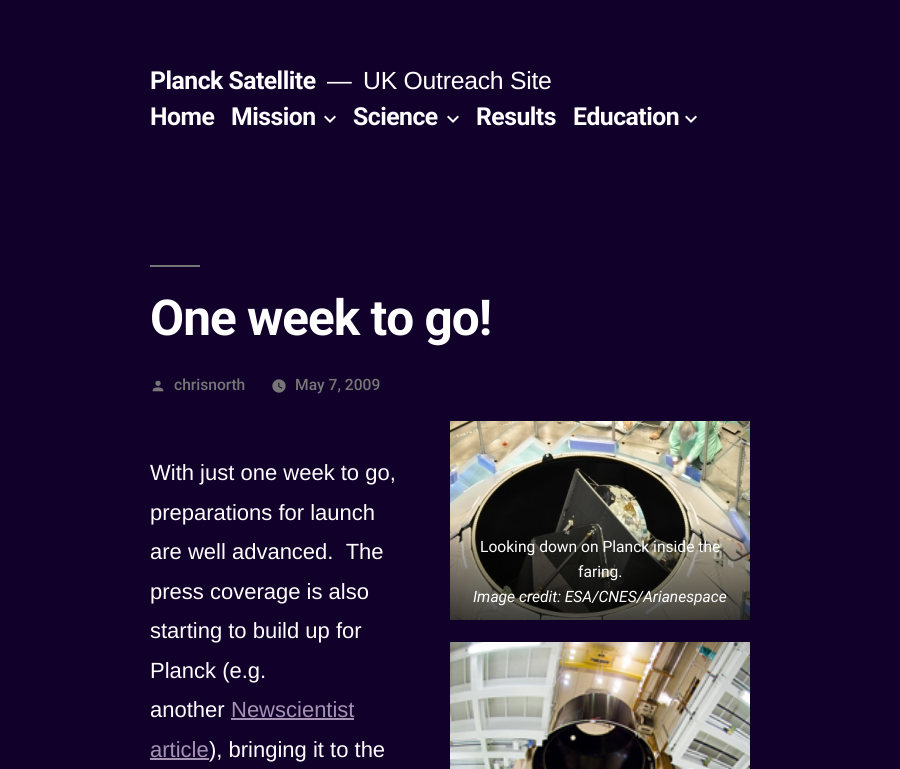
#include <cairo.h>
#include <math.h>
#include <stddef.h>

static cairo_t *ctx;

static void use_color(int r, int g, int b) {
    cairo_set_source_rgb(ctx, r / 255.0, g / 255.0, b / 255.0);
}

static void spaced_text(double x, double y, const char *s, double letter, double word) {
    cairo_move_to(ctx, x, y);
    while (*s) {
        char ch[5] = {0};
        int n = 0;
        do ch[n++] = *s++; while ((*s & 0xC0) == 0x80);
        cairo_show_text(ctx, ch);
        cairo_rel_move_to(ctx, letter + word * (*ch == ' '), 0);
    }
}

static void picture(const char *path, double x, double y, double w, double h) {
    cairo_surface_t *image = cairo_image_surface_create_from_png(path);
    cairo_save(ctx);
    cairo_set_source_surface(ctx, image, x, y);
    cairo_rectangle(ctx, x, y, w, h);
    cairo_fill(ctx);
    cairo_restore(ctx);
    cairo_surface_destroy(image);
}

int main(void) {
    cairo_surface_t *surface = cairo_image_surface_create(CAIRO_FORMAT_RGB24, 900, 769);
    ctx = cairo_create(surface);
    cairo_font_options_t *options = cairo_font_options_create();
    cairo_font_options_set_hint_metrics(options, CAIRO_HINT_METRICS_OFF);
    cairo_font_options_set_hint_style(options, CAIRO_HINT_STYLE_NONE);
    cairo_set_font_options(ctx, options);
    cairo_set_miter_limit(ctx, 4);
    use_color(17, 0, 42);
    cairo_paint(ctx);
    cairo_select_font_face(ctx, "Roboto", CAIRO_FONT_SLANT_NORMAL, CAIRO_FONT_WEIGHT_BOLD);
    cairo_set_font_size(ctx, 24.75);
    use_color(255, 255, 255);
    spaced_text(150, 89, "Planck Satellite", -0.5, 0);
    cairo_select_font_face(ctx, "Liberation Sans", CAIRO_FONT_SLANT_NORMAL, CAIRO_FONT_WEIGHT_NORMAL);
    spaced_text(327, 89, "—", -0.25, 0);
    spaced_text(363, 89, "UK Outreach Site", -0.25, 0);
    cairo_select_font_face(ctx, "Roboto", CAIRO_FONT_SLANT_NORMAL, CAIRO_FONT_WEIGHT_BOLD);
    spaced_text(150, 125, "Home", -0.5, 0);
    spaced_text(231, 125, "Mission", -0.5, 0);
    picture("img1.png", 324, 115, 12, 8);
    spaced_text(353, 125, "Science", -0.5, 0);
    picture("img1.png", 447, 115, 12, 8);
    spaced_text(476, 125, "Results", -0.5, 0);
    spaced_text(573, 125, "Education", -0.5, 0);
    picture("img1.png", 685, 115, 12, 8);
    use_color(118, 118, 118);
    cairo_rectangle(ctx, 150, 265, 50, 2);
    cairo_fill(ctx);
    cairo_set_font_size(ctx, 49.5);
    use_color(255, 255, 255);
    spaced_text(150, 335, "One week to go!", -1, 0);
    picture("img2.png", 152, 380, 12, 12);
    cairo_select_font_face(ctx, "Roboto Medium", CAIRO_FONT_SLANT_NORMAL, CAIRO_FONT_WEIGHT_NORMAL);
    cairo_set_font_size(ctx, 15.6);
    use_color(118, 118, 118);
    cairo_move_to(ctx, 174, 390);
    cairo_show_text(ctx, "chrisnorth");
    picture("img3.png", 272, 379, 14, 14);
    cairo_move_to(ctx, 295, 390);
    cairo_show_text(ctx, "May 7, 2009");
    cairo_select_font_face(ctx, "Liberation Sans", CAIRO_FONT_SLANT_NORMAL, CAIRO_FONT_WEIGHT_NORMAL);
    cairo_set_font_size(ctx, 22);
    use_color(255, 255, 255);
    cairo_move_to(ctx, 150, 480);
    cairo_show_text(ctx, "With just one week to go,");
    cairo_move_to(ctx, 150, 520);
    cairo_show_text(ctx, "preparations for launch");
    cairo_move_to(ctx, 150, 559);
    cairo_show_text(ctx, "are well advanced.  The");
    cairo_move_to(ctx, 150, 599);
    cairo_show_text(ctx, "press coverage is also");
    cairo_move_to(ctx, 150, 638);
    cairo_show_text(ctx, "starting to build up for");
    cairo_move_to(ctx, 150, 678);
    cairo_show_text(ctx, "Planck (e.g.");
    cairo_move_to(ctx, 150, 717);
    cairo_show_text(ctx, "another");
    use_color(166, 147, 179);
    cairo_move_to(ctx, 231, 717);
    cairo_show_text(ctx, "Newscientist");
    cairo_rectangle(ctx, 231, 718, 123, 2);
    cairo_fill(ctx);
    cairo_move_to(ctx, 150, 757);
    cairo_show_text(ctx, "article");
    cairo_rectangle(ctx, 150, 758, 59, 2);
    cairo_fill(ctx);
    use_color(255, 255, 255);
    cairo_move_to(ctx, 209, 757);
    cairo_show_text(ctx, "), bringing it to the");
    picture("img4.png", 450, 421, 300, 199);
    cairo_select_font_face(ctx, "Roboto", CAIRO_FONT_SLANT_NORMAL, CAIRO_FONT_WEIGHT_NORMAL);
    cairo_set_font_size(ctx, 15.6);
    cairo_move_to(ctx, 480, 552);
    cairo_show_text(ctx, "Looking down on Planck inside the");
    cairo_move_to(ctx, 578, 577);
    cairo_show_text(ctx, "faring.");
    cairo_select_font_face(ctx, "Roboto", CAIRO_FONT_SLANT_ITALIC, CAIRO_FONT_WEIGHT_NORMAL);
    cairo_move_to(ctx, 473, 602);
    cairo_show_text(ctx, "Image credit: ESA/CNES/Arianespace");
    picture("img5.png", 450, 642, 300, 127);
    cairo_surface_write_to_png(surface, "result.png");
    cairo_font_options_destroy(options);
    cairo_destroy(ctx);
    cairo_surface_destroy(surface);
    return 0;
}
